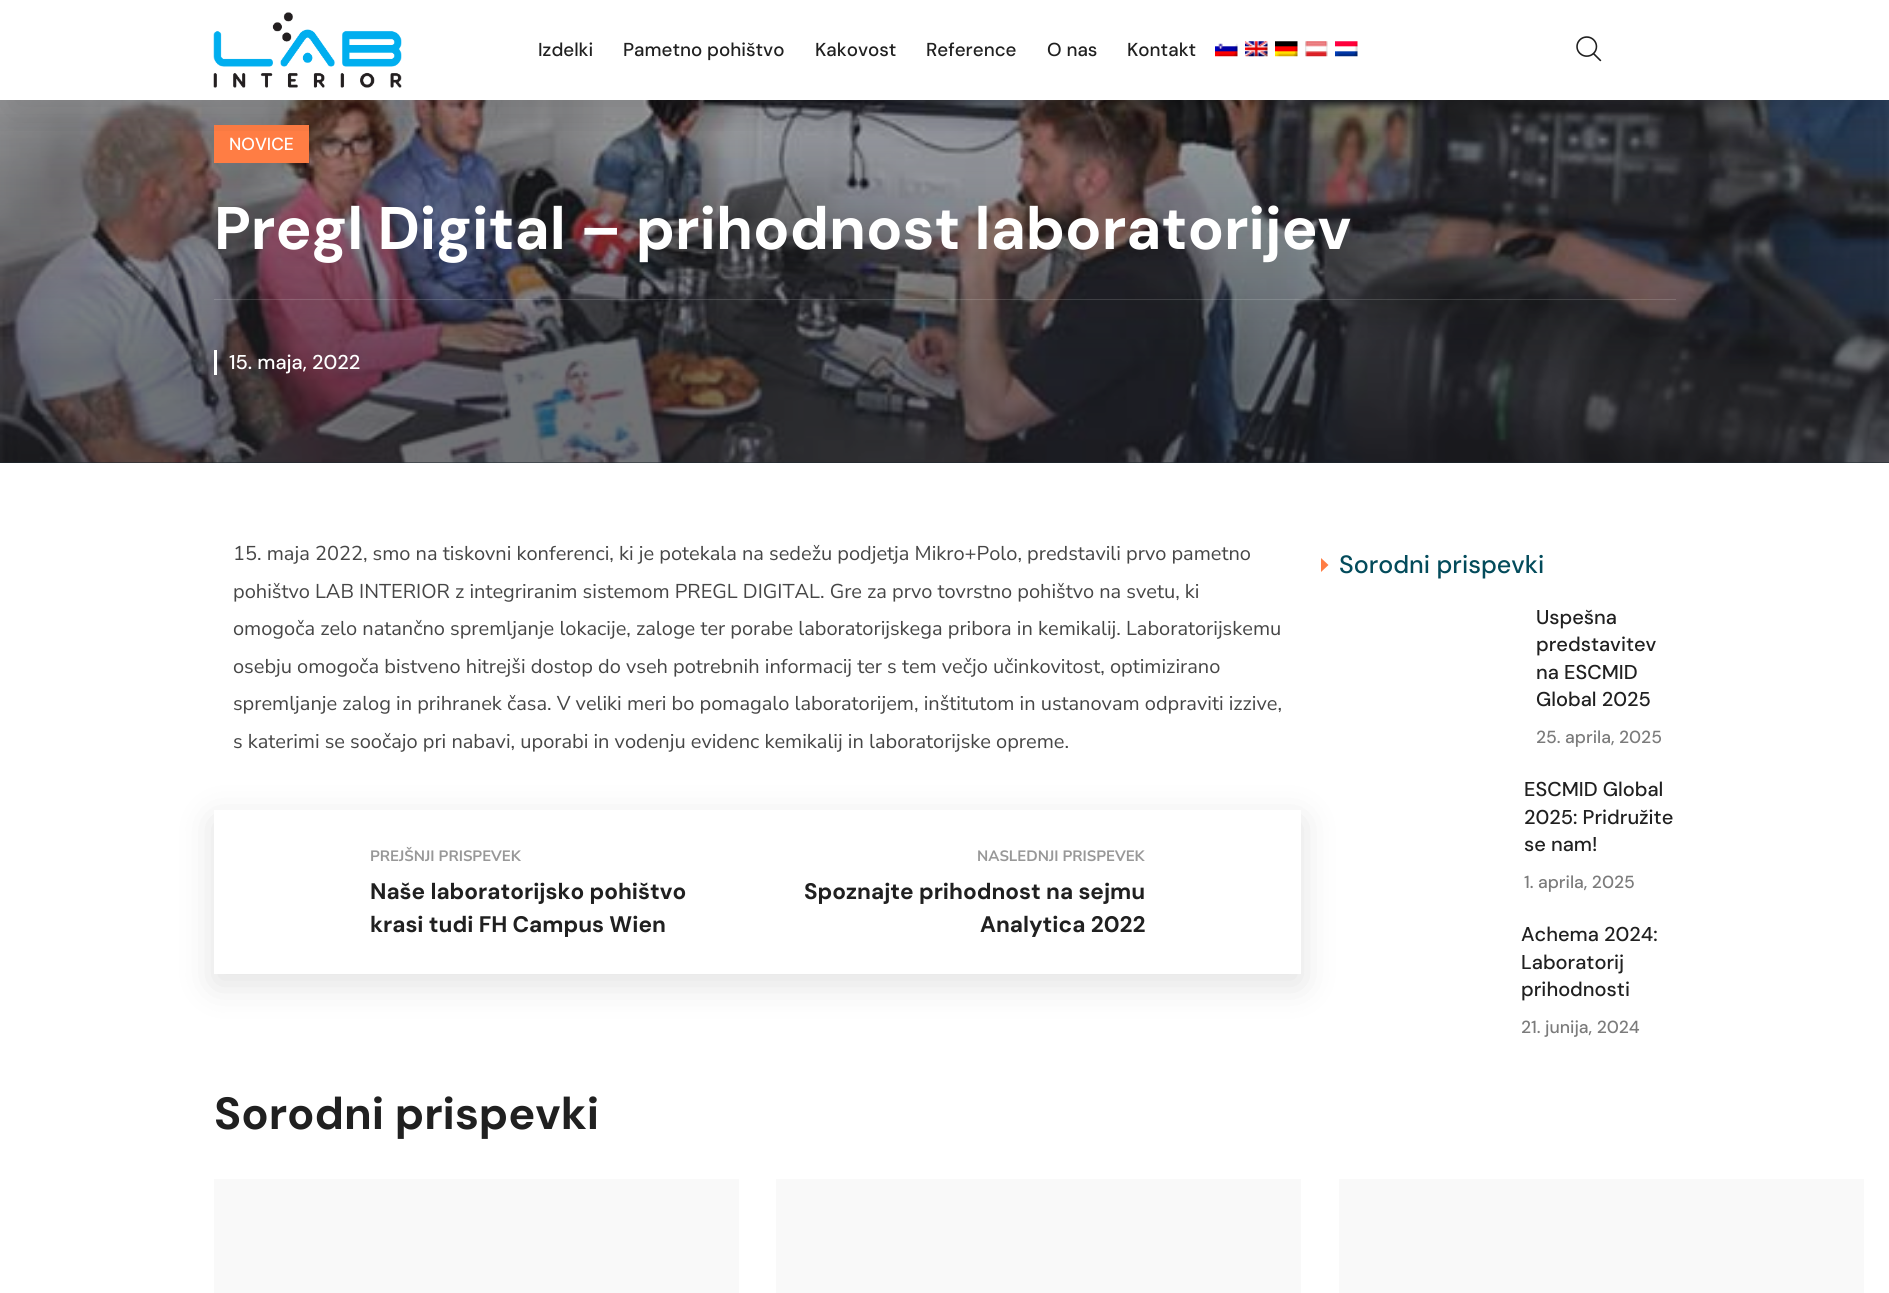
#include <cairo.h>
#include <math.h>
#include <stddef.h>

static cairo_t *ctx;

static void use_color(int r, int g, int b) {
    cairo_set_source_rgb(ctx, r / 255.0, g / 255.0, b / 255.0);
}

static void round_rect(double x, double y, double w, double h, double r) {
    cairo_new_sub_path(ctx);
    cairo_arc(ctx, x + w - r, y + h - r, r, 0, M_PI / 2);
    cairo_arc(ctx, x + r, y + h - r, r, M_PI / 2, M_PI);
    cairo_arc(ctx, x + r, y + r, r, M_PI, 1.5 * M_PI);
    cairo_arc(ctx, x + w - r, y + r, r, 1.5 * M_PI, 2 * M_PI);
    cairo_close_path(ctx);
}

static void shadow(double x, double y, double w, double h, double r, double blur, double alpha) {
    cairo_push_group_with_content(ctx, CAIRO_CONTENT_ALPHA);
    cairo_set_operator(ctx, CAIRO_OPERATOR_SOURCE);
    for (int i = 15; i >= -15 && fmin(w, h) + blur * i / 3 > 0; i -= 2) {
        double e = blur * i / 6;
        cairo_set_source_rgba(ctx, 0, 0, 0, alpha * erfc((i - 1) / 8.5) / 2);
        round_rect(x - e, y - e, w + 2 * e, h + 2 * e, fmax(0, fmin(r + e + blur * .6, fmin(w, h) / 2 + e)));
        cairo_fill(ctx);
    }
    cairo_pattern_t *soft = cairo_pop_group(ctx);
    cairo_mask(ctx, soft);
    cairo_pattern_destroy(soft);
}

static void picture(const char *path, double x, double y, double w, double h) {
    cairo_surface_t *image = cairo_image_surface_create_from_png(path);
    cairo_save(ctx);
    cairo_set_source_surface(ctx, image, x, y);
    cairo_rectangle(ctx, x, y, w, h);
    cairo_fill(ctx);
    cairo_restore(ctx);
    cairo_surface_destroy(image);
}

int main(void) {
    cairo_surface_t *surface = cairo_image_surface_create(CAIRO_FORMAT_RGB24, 1889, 1293);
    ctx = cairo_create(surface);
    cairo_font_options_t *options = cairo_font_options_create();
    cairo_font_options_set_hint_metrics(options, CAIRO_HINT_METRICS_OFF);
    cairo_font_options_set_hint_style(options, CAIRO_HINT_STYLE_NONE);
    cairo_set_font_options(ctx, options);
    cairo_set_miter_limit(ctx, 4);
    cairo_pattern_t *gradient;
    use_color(255, 255, 255);
    cairo_paint(ctx);
    use_color(24, 43, 50);
    cairo_rectangle(ctx, 0, 462, 1889, 1);
    cairo_fill(ctx);
    picture("img8.png", 0, 100, 1889, 363);
    gradient = cairo_pattern_create_linear(945, 463, 945, 100);
    cairo_pattern_add_color_stop_rgba(gradient, 0.27, 0.133, 0.137, 0.157, 0.4);
    cairo_pattern_add_color_stop_rgba(gradient, 1, 0.133, 0.137, 0.157, 0);
    cairo_set_source(ctx, gradient);
    cairo_pattern_destroy(gradient);
    cairo_rectangle(ctx, 0, 114, 1889, 349);
    cairo_fill(ctx);
    use_color(255, 125, 68);
    cairo_rectangle(ctx, 214, 125, 95, 38);
    cairo_fill(ctx);
    cairo_save(ctx);
    cairo_rectangle(ctx, 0, 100, 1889, 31);
    cairo_clip(ctx);
    use_color(0, 0, 0);
    shadow(10, 11, 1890, 100, 0, 24, 0.1);
    cairo_restore(ctx);
    picture("img1.png", 213, 12, 189, 76);
    cairo_select_font_face(ctx, "DM Sans Medium", CAIRO_FONT_SLANT_NORMAL, CAIRO_FONT_WEIGHT_NORMAL);
    cairo_set_font_size(ctx, 18.75);
    use_color(32, 32, 32);
    cairo_move_to(ctx, 538, 56);
    cairo_show_text(ctx, "Izdelki");
    cairo_move_to(ctx, 623, 56);
    cairo_show_text(ctx, "Pametno pohištvo");
    cairo_move_to(ctx, 815, 56);
    cairo_show_text(ctx, "Kakovost");
    cairo_move_to(ctx, 926, 56);
    cairo_show_text(ctx, "Reference");
    cairo_move_to(ctx, 1047, 56);
    cairo_show_text(ctx, "O nas");
    cairo_move_to(ctx, 1127, 56);
    cairo_show_text(ctx, "Kontakt");
    picture("img2.png", 1215, 43, 23, 14);
    picture("img3.png", 1245, 41, 23, 16);
    picture("img4.png", 1275, 41, 23, 16);
    picture("img5.png", 1305, 41, 23, 16);
    picture("img6.png", 1335, 41, 23, 16);
    picture("img7.png", 1576, 36, 26, 26);
    cairo_set_font_size(ctx, 17.5);
    use_color(255, 255, 255);
    cairo_move_to(ctx, 229, 150);
    cairo_show_text(ctx, "NOVICE");
    cairo_select_font_face(ctx, "DM Sans", CAIRO_FONT_SLANT_NORMAL, CAIRO_FONT_WEIGHT_BOLD);
    cairo_set_font_size(ctx, 60);
    cairo_move_to(ctx, 214, 249);
    cairo_show_text(ctx, "Pregl Digital – prihodnost laboratorijev");
    cairo_set_source_rgba(ctx, 1, 1, 1, 0.15);
    cairo_rectangle(ctx, 214, 299, 1462, 1);
    cairo_fill(ctx);
    use_color(255, 255, 255);
    cairo_rectangle(ctx, 214, 350, 3, 25);
    cairo_fill(ctx);
    cairo_select_font_face(ctx, "DM Sans Medium", CAIRO_FONT_SLANT_NORMAL, CAIRO_FONT_WEIGHT_NORMAL);
    cairo_set_font_size(ctx, 20);
    cairo_move_to(ctx, 229, 369);
    cairo_show_text(ctx, "15. maja, 2022");
    cairo_select_font_face(ctx, "Nunito Sans", CAIRO_FONT_SLANT_NORMAL, CAIRO_FONT_WEIGHT_NORMAL);
    use_color(70, 70, 70);
    cairo_move_to(ctx, 233, 560);
    cairo_show_text(ctx, "15. maja 2022, smo na tiskovni konferenci, ki je potekala na sedežu podjetja Mikro+Polo, predstavili prvo pametno");
    cairo_move_to(ctx, 233, 598);
    cairo_show_text(ctx, "pohištvo LAB INTERIOR z integriranim sistemom PREGL DIGITAL. Gre za prvo tovrstno pohištvo na svetu, ki");
    cairo_move_to(ctx, 233, 635);
    cairo_show_text(ctx, "omogoča zelo natančno spremljanje lokacije, zaloge ter porabe laboratorijskega pribora in kemikalij. Laboratorijskemu");
    cairo_move_to(ctx, 233, 673);
    cairo_show_text(ctx, "osebju omogoča bistveno hitrejši dostop do vseh potrebnih informacij ter s tem večjo učinkovitost, optimizirano");
    cairo_move_to(ctx, 233, 710);
    cairo_show_text(ctx, "spremljanje zalog in prihranek časa. V veliki meri bo pomagalo laboratorijem, inštitutom in ustanovam odpraviti izzive,");
    cairo_move_to(ctx, 233, 748);
    cairo_show_text(ctx, "s katerimi se soočajo pri nabavi, uporabi in vodenju evidenc kemikalij in laboratorijske opreme.");
    cairo_save(ctx);
    cairo_set_fill_rule(ctx, CAIRO_FILL_RULE_EVEN_ODD);
    cairo_new_path(ctx);
    cairo_move_to(ctx, 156, 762);
    cairo_line_to(ctx, 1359, 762);
    cairo_line_to(ctx, 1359, 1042);
    cairo_line_to(ctx, 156, 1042);
    cairo_close_path(ctx);
    cairo_move_to(ctx, 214, 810);
    cairo_line_to(ctx, 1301, 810);
    cairo_line_to(ctx, 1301, 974);
    cairo_line_to(ctx, 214, 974);
    cairo_close_path(ctx);
    cairo_clip(ctx);
    use_color(0, 0, 0);
    shadow(214, 820, 1087, 164, 0, 19, 0.12);
    cairo_restore(ctx);
    cairo_select_font_face(ctx, "Nunito Sans", CAIRO_FONT_SLANT_NORMAL, CAIRO_FONT_WEIGHT_BOLD);
    cairo_set_font_size(ctx, 15);
    use_color(152, 152, 152);
    cairo_move_to(ctx, 370, 861);
    cairo_show_text(ctx, "PREJŠNJI PRISPEVEK");
    cairo_select_font_face(ctx, "DM Sans", CAIRO_FONT_SLANT_NORMAL, CAIRO_FONT_WEIGHT_BOLD);
    cairo_set_font_size(ctx, 22.5);
    use_color(32, 32, 32);
    cairo_move_to(ctx, 370, 899);
    cairo_show_text(ctx, "Naše laboratorijsko pohištvo");
    cairo_move_to(ctx, 370, 932);
    cairo_show_text(ctx, "krasi tudi FH Campus Wien");
    cairo_select_font_face(ctx, "Nunito Sans", CAIRO_FONT_SLANT_NORMAL, CAIRO_FONT_WEIGHT_BOLD);
    cairo_set_font_size(ctx, 15);
    use_color(152, 152, 152);
    cairo_move_to(ctx, 977, 861);
    cairo_show_text(ctx, "NASLEDNJI PRISPEVEK");
    cairo_select_font_face(ctx, "DM Sans", CAIRO_FONT_SLANT_NORMAL, CAIRO_FONT_WEIGHT_BOLD);
    cairo_set_font_size(ctx, 22.5);
    use_color(32, 32, 32);
    cairo_move_to(ctx, 804, 899);
    cairo_show_text(ctx, "Spoznajte prihodnost na sejmu");
    cairo_move_to(ctx, 980, 932);
    cairo_show_text(ctx, "Analytica 2022");
    cairo_set_font_size(ctx, 45);
    cairo_move_to(ctx, 214, 1129);
    cairo_show_text(ctx, "Sorodni prispevki");
    use_color(249, 249, 249);
    cairo_rectangle(ctx, 214, 1179, 525, 114);
    cairo_fill(ctx);
    cairo_rectangle(ctx, 776, 1179, 525, 114);
    cairo_fill(ctx);
    cairo_rectangle(ctx, 1339, 1179, 525, 114);
    cairo_fill(ctx);
    use_color(255, 125, 68);
    cairo_new_path(ctx);
    cairo_move_to(ctx, 1321, 572);
    cairo_line_to(ctx, 1328.5, 565);
    cairo_line_to(ctx, 1321, 558);
    cairo_close_path(ctx);
    cairo_fill(ctx);
    cairo_select_font_face(ctx, "DM Sans Medium", CAIRO_FONT_SLANT_NORMAL, CAIRO_FONT_WEIGHT_NORMAL);
    cairo_set_font_size(ctx, 25);
    use_color(3, 75, 91);
    cairo_move_to(ctx, 1339, 573);
    cairo_show_text(ctx, "Sorodni prispevki");
    cairo_set_font_size(ctx, 20);
    use_color(32, 32, 32);
    cairo_move_to(ctx, 1536, 624);
    cairo_show_text(ctx, "Uspešna");
    cairo_move_to(ctx, 1536, 651);
    cairo_show_text(ctx, "predstavitev");
    cairo_move_to(ctx, 1536, 679);
    cairo_show_text(ctx, "na ESCMID");
    cairo_move_to(ctx, 1536, 706);
    cairo_show_text(ctx, "Global 2025");
    cairo_set_font_size(ctx, 17.5);
    use_color(123, 123, 123);
    cairo_move_to(ctx, 1536, 743);
    cairo_show_text(ctx, "25. aprila, 2025");
    cairo_set_font_size(ctx, 20);
    use_color(32, 32, 32);
    cairo_move_to(ctx, 1524, 796);
    cairo_show_text(ctx, "ESCMID Global");
    cairo_move_to(ctx, 1524, 824);
    cairo_show_text(ctx, "2025: Pridružite");
    cairo_move_to(ctx, 1524, 851);
    cairo_show_text(ctx, "se nam!");
    cairo_set_font_size(ctx, 17.5);
    use_color(123, 123, 123);
    cairo_move_to(ctx, 1524, 888);
    cairo_show_text(ctx, "1. aprila, 2025");
    cairo_set_font_size(ctx, 20);
    use_color(32, 32, 32);
    cairo_move_to(ctx, 1521, 941);
    cairo_show_text(ctx, "Achema 2024:");
    cairo_move_to(ctx, 1521, 969);
    cairo_show_text(ctx, "Laboratorij");
    cairo_move_to(ctx, 1521, 996);
    cairo_show_text(ctx, "prihodnosti");
    cairo_set_font_size(ctx, 17.5);
    use_color(123, 123, 123);
    cairo_move_to(ctx, 1521, 1033);
    cairo_show_text(ctx, "21. junija, 2024");
    cairo_surface_write_to_png(surface, "result.png");
    cairo_font_options_destroy(options);
    cairo_destroy(ctx);
    cairo_surface_destroy(surface);
    return 0;
}
